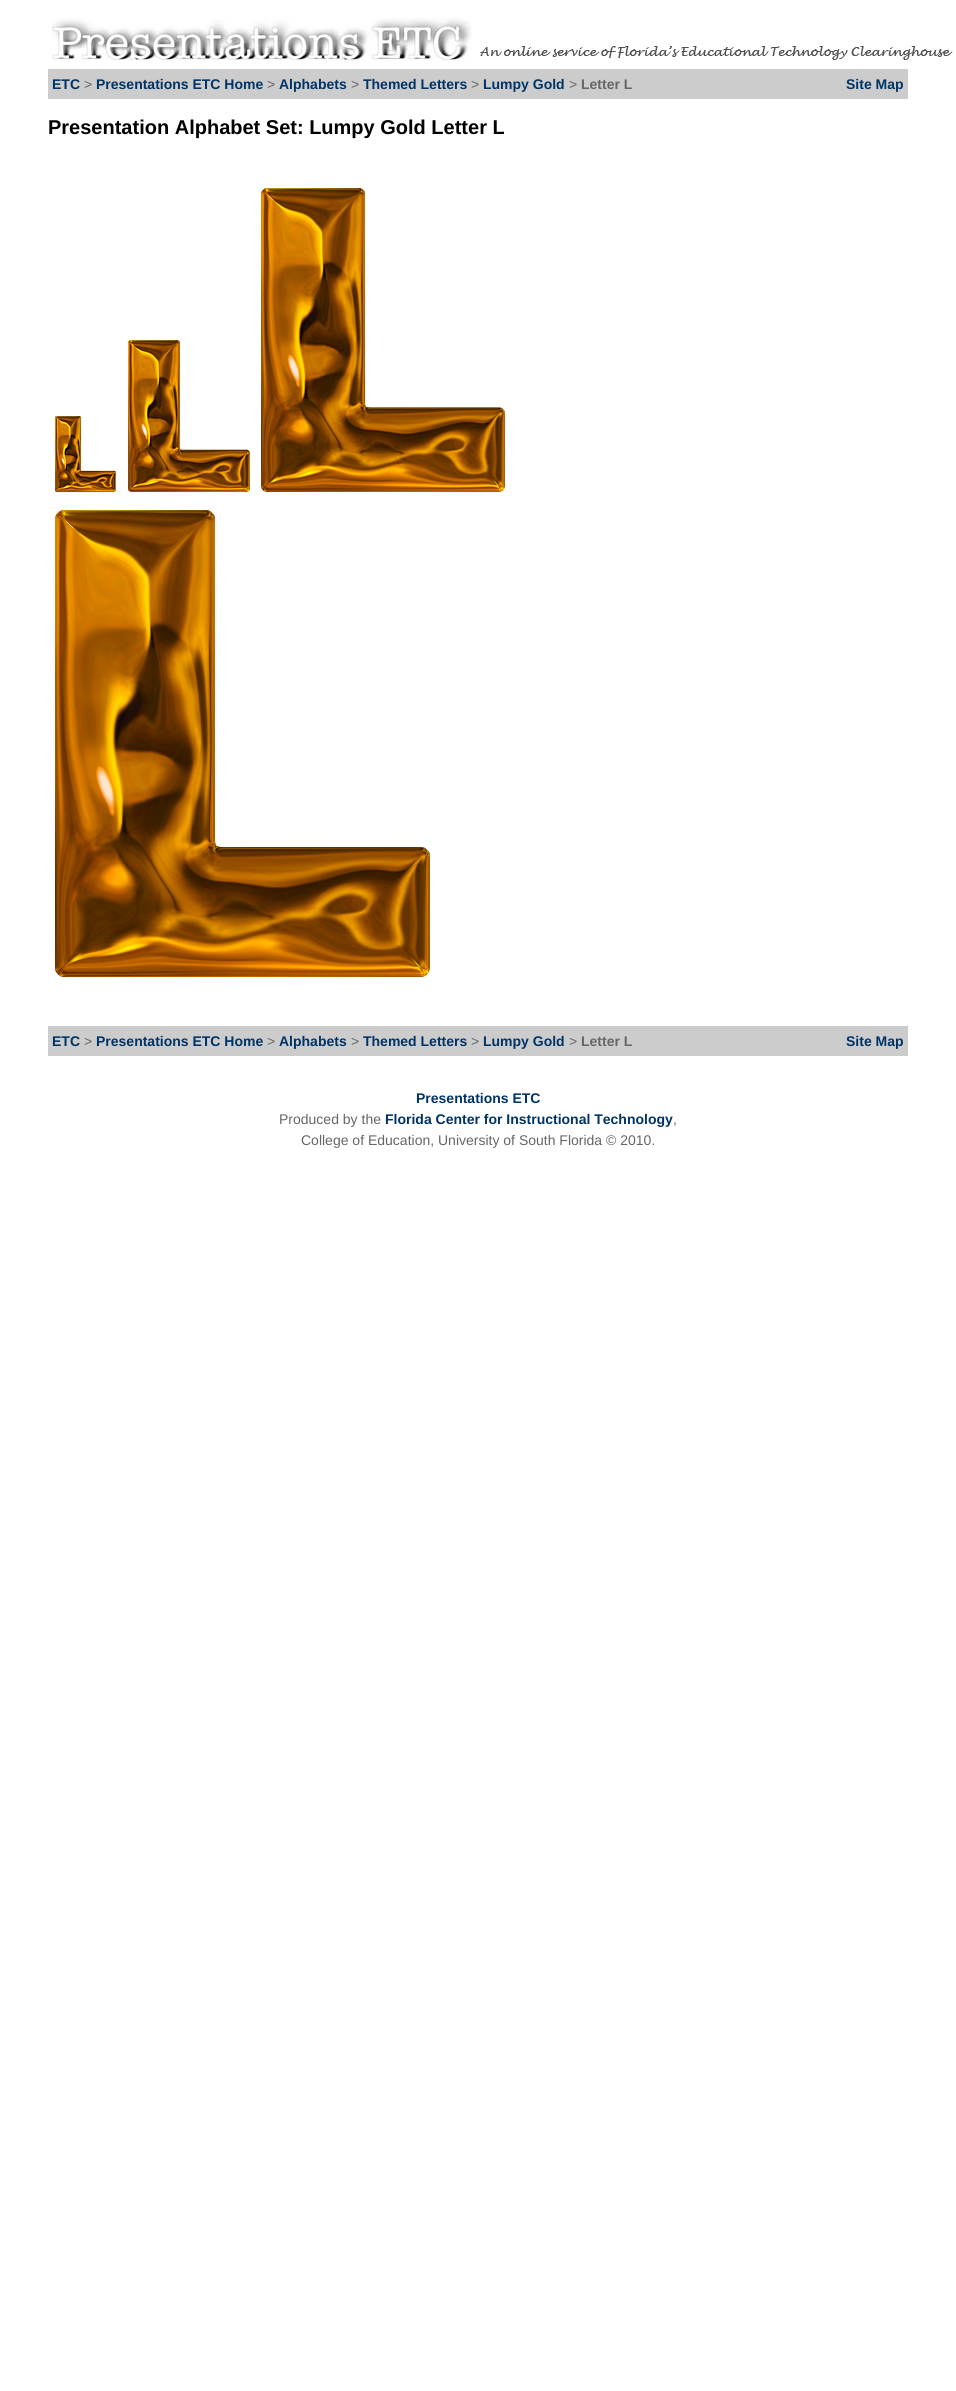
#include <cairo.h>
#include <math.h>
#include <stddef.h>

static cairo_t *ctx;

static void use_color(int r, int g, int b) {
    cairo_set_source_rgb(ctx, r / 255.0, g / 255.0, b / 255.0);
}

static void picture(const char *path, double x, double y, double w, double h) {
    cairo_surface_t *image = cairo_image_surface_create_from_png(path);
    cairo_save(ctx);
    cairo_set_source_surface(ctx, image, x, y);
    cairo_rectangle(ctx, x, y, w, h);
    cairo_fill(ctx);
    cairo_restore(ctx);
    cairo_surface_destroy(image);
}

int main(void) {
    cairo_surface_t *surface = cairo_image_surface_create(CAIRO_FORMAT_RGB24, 956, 2391);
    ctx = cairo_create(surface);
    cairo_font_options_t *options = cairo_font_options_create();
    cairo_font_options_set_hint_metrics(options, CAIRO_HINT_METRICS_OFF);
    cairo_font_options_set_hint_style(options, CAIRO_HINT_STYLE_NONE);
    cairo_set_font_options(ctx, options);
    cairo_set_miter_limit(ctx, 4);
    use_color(255, 255, 255);
    cairo_paint(ctx);
    picture("img1.png", 51, 18, 421, 43);
    picture("img2.png", 480, 46, 473, 14);
    use_color(204, 204, 204);
    cairo_rectangle(ctx, 48, 69, 860, 30);
    cairo_fill(ctx);
    cairo_select_font_face(ctx, "Liberation Sans", CAIRO_FONT_SLANT_NORMAL, CAIRO_FONT_WEIGHT_BOLD);
    cairo_set_font_size(ctx, 14);
    use_color(0, 51, 102);
    cairo_move_to(ctx, 52, 89);
    cairo_show_text(ctx, "ETC");
    cairo_select_font_face(ctx, "Liberation Sans", CAIRO_FONT_SLANT_NORMAL, CAIRO_FONT_WEIGHT_NORMAL);
    use_color(102, 102, 102);
    cairo_move_to(ctx, 84, 89);
    cairo_show_text(ctx, ">");
    cairo_select_font_face(ctx, "Liberation Sans", CAIRO_FONT_SLANT_NORMAL, CAIRO_FONT_WEIGHT_BOLD);
    use_color(0, 51, 102);
    cairo_move_to(ctx, 96, 89);
    cairo_show_text(ctx, "Presentations ETC Home");
    cairo_select_font_face(ctx, "Liberation Sans", CAIRO_FONT_SLANT_NORMAL, CAIRO_FONT_WEIGHT_NORMAL);
    use_color(102, 102, 102);
    cairo_move_to(ctx, 267, 89);
    cairo_show_text(ctx, ">");
    cairo_select_font_face(ctx, "Liberation Sans", CAIRO_FONT_SLANT_NORMAL, CAIRO_FONT_WEIGHT_BOLD);
    use_color(0, 51, 102);
    cairo_move_to(ctx, 279, 89);
    cairo_show_text(ctx, "Alphabets");
    cairo_select_font_face(ctx, "Liberation Sans", CAIRO_FONT_SLANT_NORMAL, CAIRO_FONT_WEIGHT_NORMAL);
    use_color(102, 102, 102);
    cairo_move_to(ctx, 351, 89);
    cairo_show_text(ctx, ">");
    cairo_select_font_face(ctx, "Liberation Sans", CAIRO_FONT_SLANT_NORMAL, CAIRO_FONT_WEIGHT_BOLD);
    use_color(0, 51, 102);
    cairo_move_to(ctx, 363, 89);
    cairo_show_text(ctx, "Themed Letters");
    cairo_select_font_face(ctx, "Liberation Sans", CAIRO_FONT_SLANT_NORMAL, CAIRO_FONT_WEIGHT_NORMAL);
    use_color(102, 102, 102);
    cairo_move_to(ctx, 471, 89);
    cairo_show_text(ctx, ">");
    cairo_select_font_face(ctx, "Liberation Sans", CAIRO_FONT_SLANT_NORMAL, CAIRO_FONT_WEIGHT_BOLD);
    use_color(0, 51, 102);
    cairo_move_to(ctx, 483, 89);
    cairo_show_text(ctx, "Lumpy Gold");
    cairo_select_font_face(ctx, "Liberation Sans", CAIRO_FONT_SLANT_NORMAL, CAIRO_FONT_WEIGHT_NORMAL);
    use_color(102, 102, 102);
    cairo_move_to(ctx, 569, 89);
    cairo_show_text(ctx, ">");
    cairo_select_font_face(ctx, "Liberation Sans", CAIRO_FONT_SLANT_NORMAL, CAIRO_FONT_WEIGHT_BOLD);
    cairo_move_to(ctx, 581, 89);
    cairo_show_text(ctx, "Letter L");
    use_color(0, 51, 102);
    cairo_move_to(ctx, 846, 89);
    cairo_show_text(ctx, "Site Map");
    cairo_set_font_size(ctx, 20);
    use_color(0, 0, 0);
    cairo_move_to(ctx, 48, 134);
    cairo_show_text(ctx, "Presentation Alphabet Set: Lumpy Gold Letter L");
    picture("img3.png", 55, 416, 61, 76);
    picture("img4.png", 128, 340, 122, 152);
    picture("img5.png", 261, 188, 244, 304);
    picture("img6.png", 55, 510, 375, 467);
    use_color(204, 204, 204);
    cairo_rectangle(ctx, 48, 1026, 860, 30);
    cairo_fill(ctx);
    cairo_set_font_size(ctx, 14);
    use_color(0, 51, 102);
    cairo_move_to(ctx, 52, 1046);
    cairo_show_text(ctx, "ETC");
    cairo_select_font_face(ctx, "Liberation Sans", CAIRO_FONT_SLANT_NORMAL, CAIRO_FONT_WEIGHT_NORMAL);
    use_color(102, 102, 102);
    cairo_move_to(ctx, 84, 1046);
    cairo_show_text(ctx, ">");
    cairo_select_font_face(ctx, "Liberation Sans", CAIRO_FONT_SLANT_NORMAL, CAIRO_FONT_WEIGHT_BOLD);
    use_color(0, 51, 102);
    cairo_move_to(ctx, 96, 1046);
    cairo_show_text(ctx, "Presentations ETC Home");
    cairo_select_font_face(ctx, "Liberation Sans", CAIRO_FONT_SLANT_NORMAL, CAIRO_FONT_WEIGHT_NORMAL);
    use_color(102, 102, 102);
    cairo_move_to(ctx, 267, 1046);
    cairo_show_text(ctx, ">");
    cairo_select_font_face(ctx, "Liberation Sans", CAIRO_FONT_SLANT_NORMAL, CAIRO_FONT_WEIGHT_BOLD);
    use_color(0, 51, 102);
    cairo_move_to(ctx, 279, 1046);
    cairo_show_text(ctx, "Alphabets");
    cairo_select_font_face(ctx, "Liberation Sans", CAIRO_FONT_SLANT_NORMAL, CAIRO_FONT_WEIGHT_NORMAL);
    use_color(102, 102, 102);
    cairo_move_to(ctx, 351, 1046);
    cairo_show_text(ctx, ">");
    cairo_select_font_face(ctx, "Liberation Sans", CAIRO_FONT_SLANT_NORMAL, CAIRO_FONT_WEIGHT_BOLD);
    use_color(0, 51, 102);
    cairo_move_to(ctx, 363, 1046);
    cairo_show_text(ctx, "Themed Letters");
    cairo_select_font_face(ctx, "Liberation Sans", CAIRO_FONT_SLANT_NORMAL, CAIRO_FONT_WEIGHT_NORMAL);
    use_color(102, 102, 102);
    cairo_move_to(ctx, 471, 1046);
    cairo_show_text(ctx, ">");
    cairo_select_font_face(ctx, "Liberation Sans", CAIRO_FONT_SLANT_NORMAL, CAIRO_FONT_WEIGHT_BOLD);
    use_color(0, 51, 102);
    cairo_move_to(ctx, 483, 1046);
    cairo_show_text(ctx, "Lumpy Gold");
    cairo_select_font_face(ctx, "Liberation Sans", CAIRO_FONT_SLANT_NORMAL, CAIRO_FONT_WEIGHT_NORMAL);
    use_color(102, 102, 102);
    cairo_move_to(ctx, 569, 1046);
    cairo_show_text(ctx, ">");
    cairo_select_font_face(ctx, "Liberation Sans", CAIRO_FONT_SLANT_NORMAL, CAIRO_FONT_WEIGHT_BOLD);
    cairo_move_to(ctx, 581, 1046);
    cairo_show_text(ctx, "Letter L");
    use_color(0, 51, 102);
    cairo_move_to(ctx, 846, 1046);
    cairo_show_text(ctx, "Site Map");
    cairo_move_to(ctx, 416, 1103);
    cairo_show_text(ctx, "Presentations ETC");
    cairo_select_font_face(ctx, "Liberation Sans", CAIRO_FONT_SLANT_NORMAL, CAIRO_FONT_WEIGHT_NORMAL);
    use_color(102, 102, 102);
    cairo_move_to(ctx, 279, 1124);
    cairo_show_text(ctx, "Produced by the");
    cairo_select_font_face(ctx, "Liberation Sans", CAIRO_FONT_SLANT_NORMAL, CAIRO_FONT_WEIGHT_BOLD);
    use_color(0, 51, 102);
    cairo_move_to(ctx, 385, 1124);
    cairo_show_text(ctx, "Florida Center for Instructional Technology");
    cairo_select_font_face(ctx, "Liberation Sans", CAIRO_FONT_SLANT_NORMAL, CAIRO_FONT_WEIGHT_NORMAL);
    use_color(102, 102, 102);
    cairo_move_to(ctx, 673, 1124);
    cairo_show_text(ctx, ",");
    cairo_move_to(ctx, 301, 1145);
    cairo_show_text(ctx, "College of Education, University of South Florida © 2010.");
    cairo_surface_write_to_png(surface, "result.png");
    cairo_font_options_destroy(options);
    cairo_destroy(ctx);
    cairo_surface_destroy(surface);
    return 0;
}
